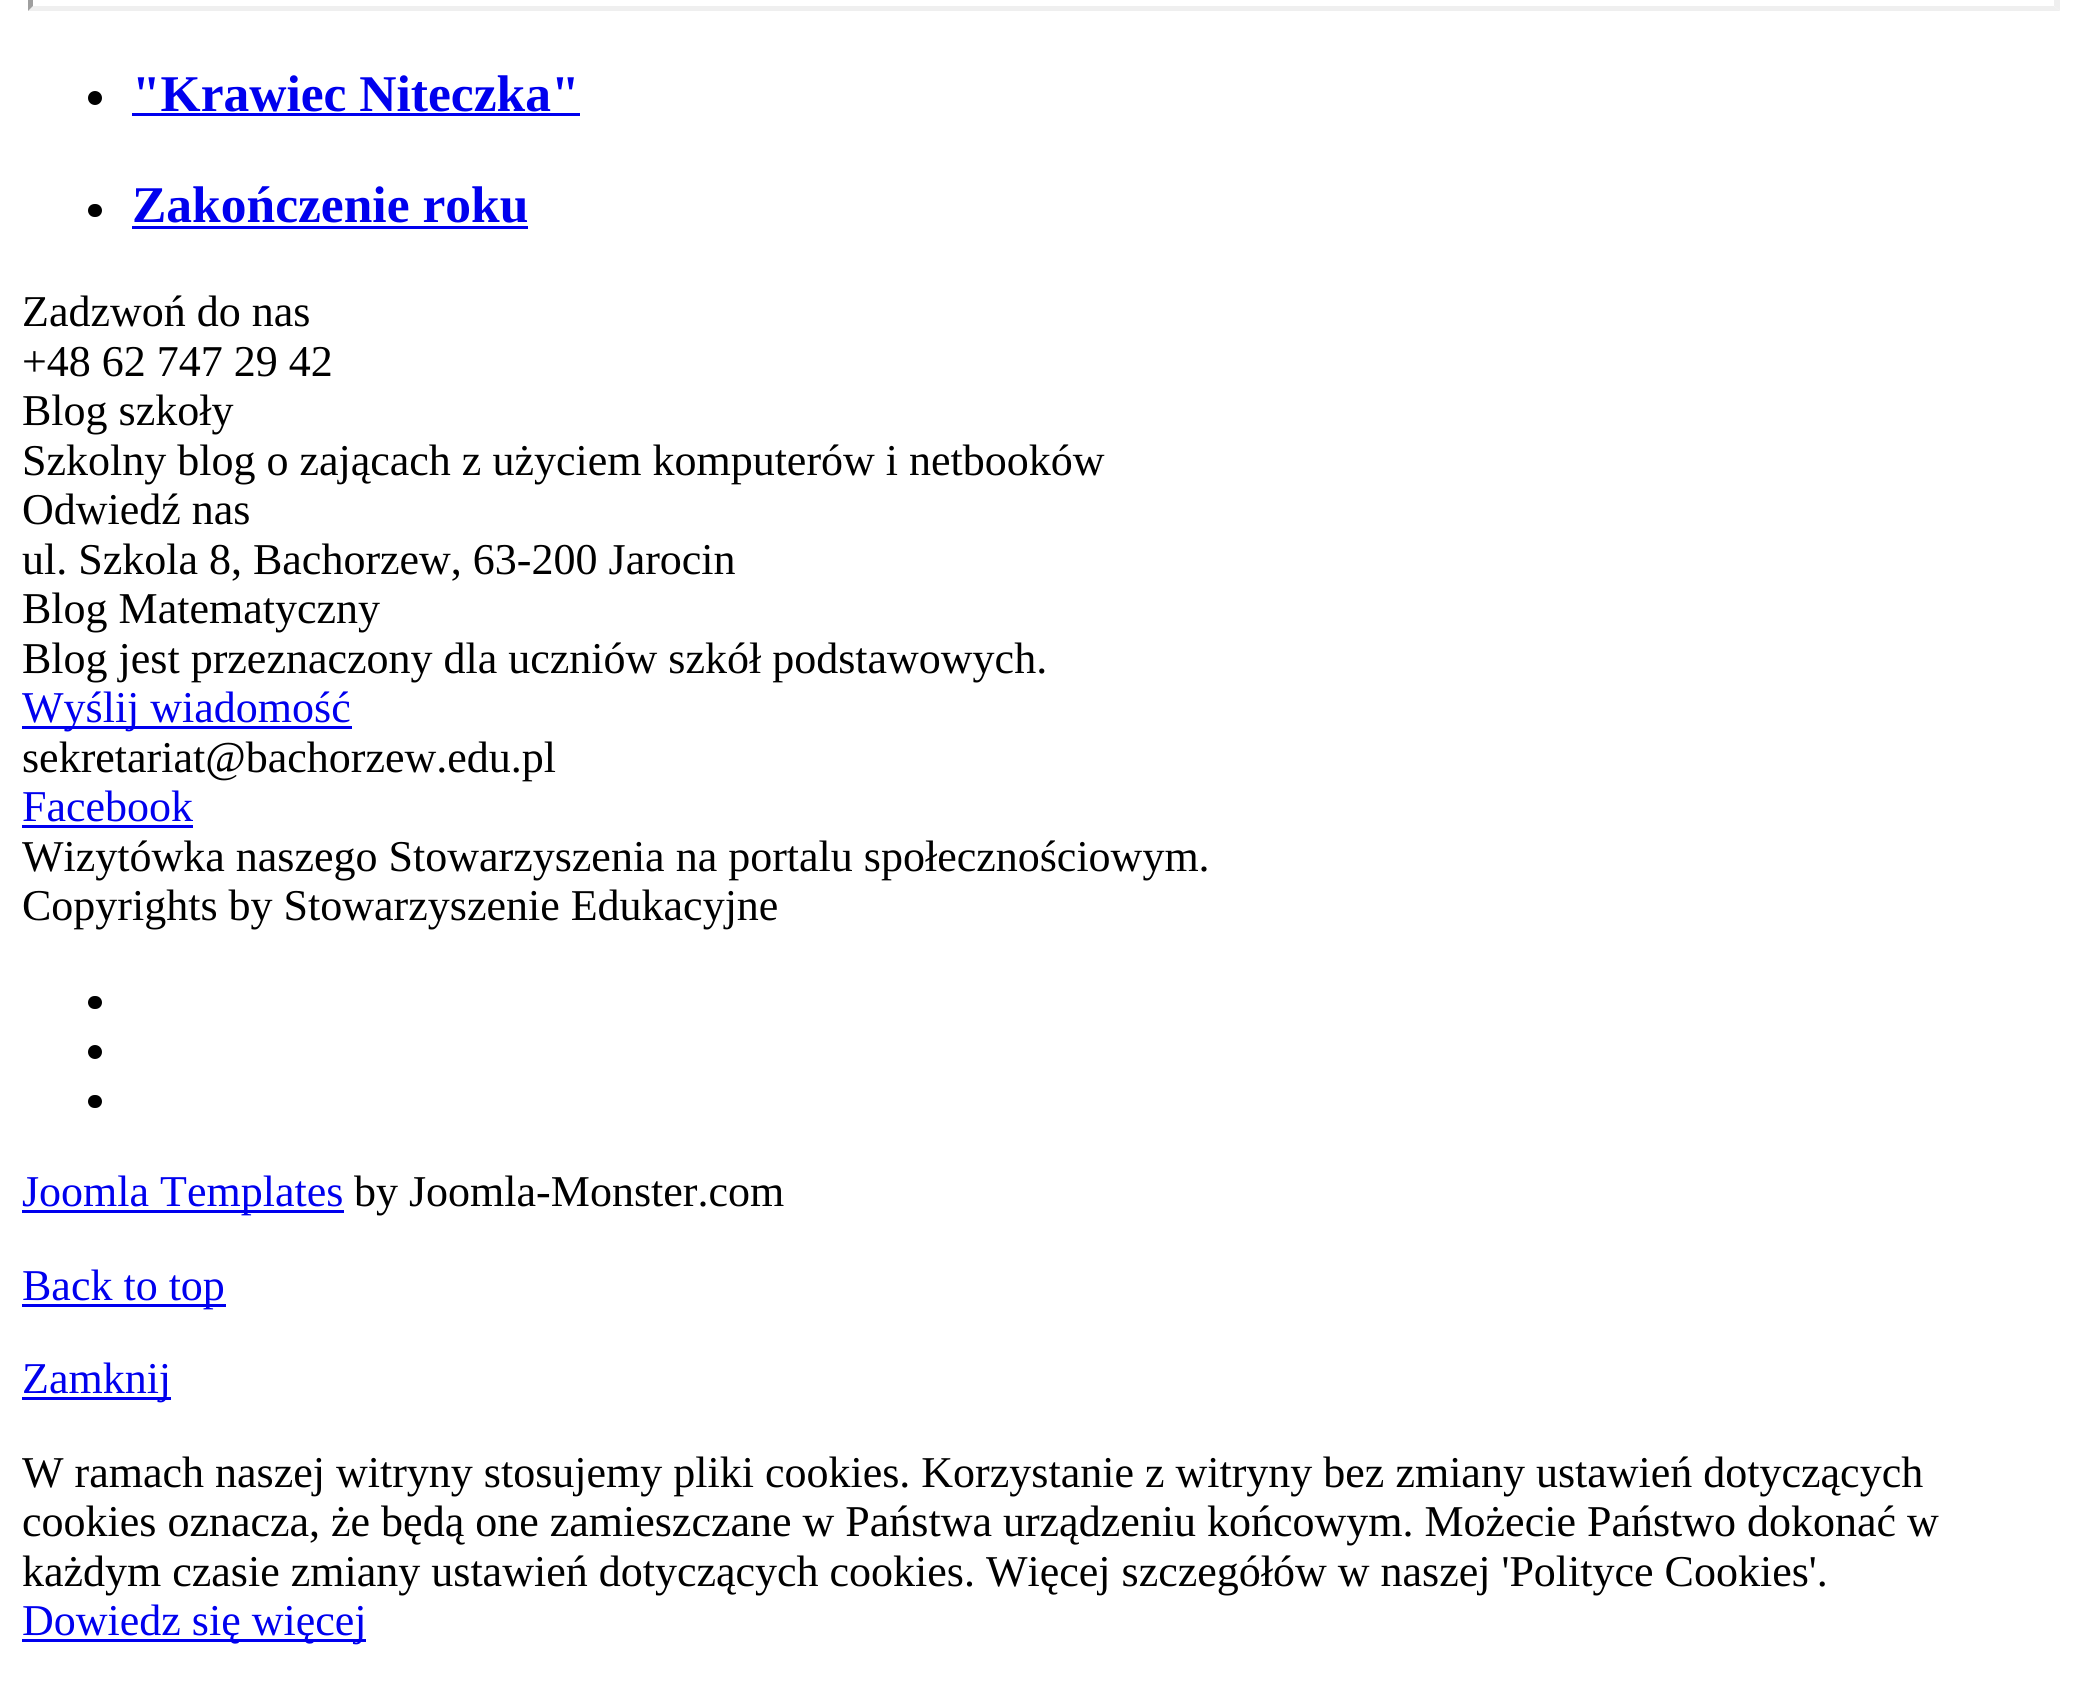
#include <cairo.h>
#include <math.h>
#include <stddef.h>

static cairo_t *ctx;

static void use_color(int r, int g, int b) {
    cairo_set_source_rgb(ctx, r / 255.0, g / 255.0, b / 255.0);
}

static void round_rect(double x, double y, double w, double h, double r) {
    cairo_new_sub_path(ctx);
    cairo_arc(ctx, x + w - r, y + h - r, r, 0, M_PI / 2);
    cairo_arc(ctx, x + r, y + h - r, r, M_PI / 2, M_PI);
    cairo_arc(ctx, x + r, y + r, r, M_PI, 1.5 * M_PI);
    cairo_arc(ctx, x + w - r, y + r, r, 1.5 * M_PI, 2 * M_PI);
    cairo_close_path(ctx);
}

int main(void) {
    cairo_surface_t *surface = cairo_image_surface_create(CAIRO_FORMAT_RGB24, 2086, 1691);
    ctx = cairo_create(surface);
    cairo_font_options_t *options = cairo_font_options_create();
    cairo_font_options_set_hint_metrics(options, CAIRO_HINT_METRICS_OFF);
    cairo_font_options_set_hint_style(options, CAIRO_HINT_STYLE_NONE);
    cairo_set_font_options(ctx, options);
    cairo_set_miter_limit(ctx, 4);
    use_color(255, 255, 255);
    cairo_paint(ctx);
    use_color(239, 239, 239);
    cairo_new_path(ctx);
    cairo_move_to(ctx, 2060, -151);
    cairo_line_to(ctx, 2060, 11);
    cairo_line_to(ctx, 2054, 6);
    cairo_line_to(ctx, 2054, -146);
    cairo_close_path(ctx);
    cairo_fill(ctx);
    cairo_new_path(ctx);
    cairo_move_to(ctx, 2060, 11);
    cairo_line_to(ctx, 28, 11);
    cairo_line_to(ctx, 33, 6);
    cairo_line_to(ctx, 2054, 6);
    cairo_close_path(ctx);
    cairo_fill(ctx);
    use_color(159, 159, 159);
    cairo_new_path(ctx);
    cairo_move_to(ctx, 28, 11);
    cairo_line_to(ctx, 28, -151);
    cairo_line_to(ctx, 33, -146);
    cairo_line_to(ctx, 33, 6);
    cairo_close_path(ctx);
    cairo_fill(ctx);
    use_color(0, 0, 0);
    cairo_arc(ctx, 95, 98, 7, 0, 2 * M_PI);
    cairo_fill(ctx);
    cairo_select_font_face(ctx, "Liberation Serif", CAIRO_FONT_SLANT_NORMAL, CAIRO_FONT_WEIGHT_BOLD);
    cairo_set_font_size(ctx, 51.5);
    use_color(0, 0, 238);
    cairo_move_to(ctx, 132, 111);
    cairo_show_text(ctx, "\"Krawiec Niteczka\"");
    cairo_rectangle(ctx, 132, 113, 448, 3);
    cairo_fill(ctx);
    use_color(0, 0, 0);
    round_rect(88, 204, 14, 13, 6.5);
    cairo_fill(ctx);
    use_color(0, 0, 238);
    cairo_move_to(ctx, 132, 222);
    cairo_show_text(ctx, "Zakończenie roku");
    cairo_rectangle(ctx, 132, 226, 396, 3);
    cairo_fill(ctx);
    cairo_select_font_face(ctx, "Liberation Serif", CAIRO_FONT_SLANT_NORMAL, CAIRO_FONT_WEIGHT_NORMAL);
    cairo_set_font_size(ctx, 44);
    use_color(0, 0, 0);
    cairo_move_to(ctx, 22, 326);
    cairo_show_text(ctx, "Zadzwoń do nas");
    cairo_move_to(ctx, 22, 376);
    cairo_show_text(ctx, "+48 62 747 29 42");
    cairo_move_to(ctx, 22, 425);
    cairo_show_text(ctx, "Blog szkoły");
    cairo_move_to(ctx, 22, 475);
    cairo_show_text(ctx, "Szkolny blog o zającach z użyciem komputerów i netbooków");
    cairo_move_to(ctx, 22, 524);
    cairo_show_text(ctx, "Odwiedź nas");
    cairo_move_to(ctx, 22, 574);
    cairo_show_text(ctx, "ul. Szkola 8, Bachorzew, 63-200 Jarocin");
    cairo_move_to(ctx, 22, 623);
    cairo_show_text(ctx, "Blog Matematyczny");
    cairo_move_to(ctx, 22, 673);
    cairo_show_text(ctx, "Blog jest przeznaczony dla uczniów szkół podstawowych.");
    use_color(0, 0, 238);
    cairo_rectangle(ctx, 22, 726, 330, 3);
    cairo_fill(ctx);
    cairo_move_to(ctx, 22, 722);
    cairo_show_text(ctx, "Wyślij wiadomość");
    use_color(0, 0, 0);
    cairo_move_to(ctx, 22, 772);
    cairo_show_text(ctx, "sekretariat@bachorzew.edu.pl");
    use_color(0, 0, 238);
    cairo_move_to(ctx, 22, 821);
    cairo_show_text(ctx, "Facebook");
    cairo_rectangle(ctx, 22, 825, 171, 3);
    cairo_fill(ctx);
    use_color(0, 0, 0);
    cairo_move_to(ctx, 22, 871);
    cairo_show_text(ctx, "Wizytówka naszego Stowarzyszenia na portalu społecznościowym.");
    cairo_move_to(ctx, 22, 920);
    cairo_show_text(ctx, "Copyrights by Stowarzyszenie Edukacyjne");
    round_rect(88, 996, 14, 13, 6.5);
    cairo_fill(ctx);
    cairo_arc(ctx, 95, 1052, 7, 0, 2 * M_PI);
    cairo_fill(ctx);
    round_rect(88, 1095, 14, 13, 6.5);
    cairo_fill(ctx);
    use_color(0, 0, 238);
    cairo_rectangle(ctx, 22, 1210, 322, 3);
    cairo_fill(ctx);
    cairo_move_to(ctx, 22, 1206);
    cairo_show_text(ctx, "Joomla Templates");
    use_color(0, 0, 0);
    cairo_move_to(ctx, 354, 1206);
    cairo_show_text(ctx, "by Joomla-Monster.com");
    use_color(0, 0, 238);
    cairo_rectangle(ctx, 22, 1304, 204, 3);
    cairo_fill(ctx);
    cairo_move_to(ctx, 22, 1300);
    cairo_show_text(ctx, "Back to top");
    cairo_rectangle(ctx, 22, 1397, 149, 3);
    cairo_fill(ctx);
    cairo_move_to(ctx, 22, 1393);
    cairo_show_text(ctx, "Zamknij");
    use_color(0, 0, 0);
    cairo_move_to(ctx, 22, 1487);
    cairo_show_text(ctx, "W ramach naszej witryny stosujemy pliki cookies. Korzystanie z witryny bez zmiany ustawień dotyczących");
    cairo_move_to(ctx, 22, 1536);
    cairo_show_text(ctx, "cookies oznacza, że będą one zamieszczane w Państwa urządzeniu końcowym. Możecie Państwo dokonać w");
    cairo_move_to(ctx, 22, 1586);
    cairo_show_text(ctx, "każdym czasie zmiany ustawień dotyczących cookies. Więcej szczegółów w naszej 'Polityce Cookies'.");
    use_color(0, 0, 238);
    cairo_rectangle(ctx, 22, 1639, 344, 3);
    cairo_fill(ctx);
    cairo_move_to(ctx, 22, 1635);
    cairo_show_text(ctx, "Dowiedz się więcej");
    cairo_surface_write_to_png(surface, "result.png");
    cairo_font_options_destroy(options);
    cairo_destroy(ctx);
    cairo_surface_destroy(surface);
    return 0;
}
